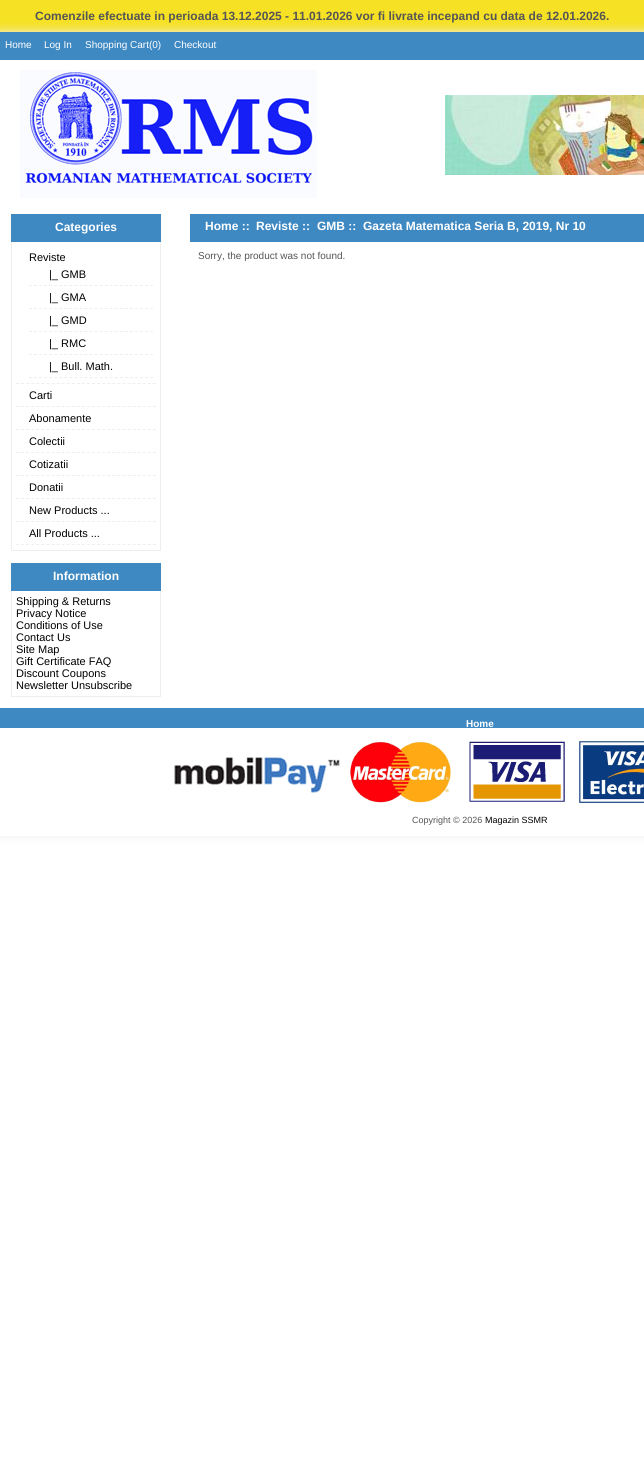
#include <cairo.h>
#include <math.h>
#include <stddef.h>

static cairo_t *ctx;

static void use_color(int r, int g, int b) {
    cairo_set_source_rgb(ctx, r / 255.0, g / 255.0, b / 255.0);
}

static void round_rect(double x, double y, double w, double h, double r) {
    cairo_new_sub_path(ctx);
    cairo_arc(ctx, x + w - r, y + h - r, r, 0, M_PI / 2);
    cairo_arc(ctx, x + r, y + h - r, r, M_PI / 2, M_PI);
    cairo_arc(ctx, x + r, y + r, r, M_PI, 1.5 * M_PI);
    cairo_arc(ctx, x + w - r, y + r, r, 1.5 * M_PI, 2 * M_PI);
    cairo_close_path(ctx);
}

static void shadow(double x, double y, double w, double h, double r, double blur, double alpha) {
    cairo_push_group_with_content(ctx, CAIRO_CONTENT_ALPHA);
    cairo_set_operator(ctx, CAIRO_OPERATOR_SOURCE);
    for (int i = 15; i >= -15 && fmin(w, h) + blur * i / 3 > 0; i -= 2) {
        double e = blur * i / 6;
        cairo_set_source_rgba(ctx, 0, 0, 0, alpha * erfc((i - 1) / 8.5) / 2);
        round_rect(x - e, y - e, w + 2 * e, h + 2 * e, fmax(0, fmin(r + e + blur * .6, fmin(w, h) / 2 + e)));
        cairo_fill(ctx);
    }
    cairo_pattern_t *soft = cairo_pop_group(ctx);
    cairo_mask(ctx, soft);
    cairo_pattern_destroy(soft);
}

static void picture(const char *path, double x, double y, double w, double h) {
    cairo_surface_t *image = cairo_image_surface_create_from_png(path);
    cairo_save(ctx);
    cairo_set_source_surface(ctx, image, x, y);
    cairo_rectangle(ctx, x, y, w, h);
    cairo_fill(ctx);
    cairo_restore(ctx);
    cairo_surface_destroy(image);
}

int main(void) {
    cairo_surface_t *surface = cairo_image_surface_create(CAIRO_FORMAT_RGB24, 644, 1458);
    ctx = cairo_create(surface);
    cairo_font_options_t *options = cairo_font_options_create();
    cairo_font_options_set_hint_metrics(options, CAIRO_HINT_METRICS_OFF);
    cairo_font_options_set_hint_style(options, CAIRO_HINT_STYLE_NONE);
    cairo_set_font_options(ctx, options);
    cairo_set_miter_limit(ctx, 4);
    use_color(255, 255, 255);
    cairo_paint(ctx);
    use_color(246, 225, 36);
    cairo_rectangle(ctx, 0, 0, 644, 32);
    cairo_fill(ctx);
    use_color(238, 238, 238);
    shadow(0, 32, 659, 804, 0, 5, 1);
    cairo_select_font_face(ctx, "Liberation Sans", CAIRO_FONT_SLANT_NORMAL, CAIRO_FONT_WEIGHT_BOLD);
    cairo_set_font_size(ctx, 12);
    use_color(85, 85, 85);
    cairo_move_to(ctx, 35, 20);
    cairo_show_text(ctx, "Comenzile efectuate in perioada 13.12.2025 - 11.01.2026 vor fi livrate incepand cu data de 12.01.2026.");
    use_color(255, 255, 255);
    cairo_rectangle(ctx, 0, 60, 644, 776);
    cairo_fill(ctx);
    use_color(63, 137, 195);
    cairo_rectangle(ctx, 0, 32, 644, 28);
    cairo_fill(ctx);
    cairo_select_font_face(ctx, "Liberation Sans", CAIRO_FONT_SLANT_NORMAL, CAIRO_FONT_WEIGHT_NORMAL);
    cairo_set_font_size(ctx, 10);
    use_color(255, 255, 255);
    cairo_move_to(ctx, 5, 48);
    cairo_show_text(ctx, "Home");
    cairo_move_to(ctx, 44, 48);
    cairo_show_text(ctx, "Log In");
    cairo_move_to(ctx, 85, 48);
    cairo_show_text(ctx, "Shopping Cart(0)");
    cairo_move_to(ctx, 174, 48);
    cairo_show_text(ctx, "Checkout");
    picture("img1.png", 20, 70, 297, 128);
    picture("img2.png", 445, 95, 199, 80);
    use_color(63, 137, 195);
    cairo_rectangle(ctx, 11, 214, 150, 28);
    cairo_fill(ctx);
    cairo_select_font_face(ctx, "Liberation Sans", CAIRO_FONT_SLANT_NORMAL, CAIRO_FONT_WEIGHT_BOLD);
    cairo_set_font_size(ctx, 12);
    use_color(255, 255, 255);
    cairo_move_to(ctx, 55, 231);
    cairo_show_text(ctx, "Categories");
    use_color(238, 238, 238);
    cairo_rectangle(ctx, 160, 242, 1, 309);
    cairo_fill(ctx);
    cairo_rectangle(ctx, 11, 550, 150, 1);
    cairo_fill(ctx);
    cairo_rectangle(ctx, 11, 242, 1, 309);
    cairo_fill(ctx);
    cairo_new_path(ctx);
    cairo_move_to(ctx, 16, 383.5);
    cairo_line_to(ctx, 156, 383.5);
    cairo_set_line_width(ctx, 1);
    cairo_set_dash(ctx, (double[]){3, 2.07}, 2, 0);
    cairo_stroke(ctx);
    cairo_select_font_face(ctx, "Liberation Sans", CAIRO_FONT_SLANT_NORMAL, CAIRO_FONT_WEIGHT_NORMAL);
    cairo_set_font_size(ctx, 11);
    use_color(0, 0, 0);
    cairo_move_to(ctx, 29, 261);
    cairo_show_text(ctx, "Reviste");
    cairo_new_path(ctx);
    cairo_move_to(ctx, 29, 285.5);
    cairo_line_to(ctx, 153, 285.5);
    use_color(238, 238, 238);
    cairo_set_dash(ctx, (double[]){3, 2.04}, 2, 0);
    cairo_stroke(ctx);
    use_color(0, 0, 0);
    cairo_move_to(ctx, 49, 278);
    cairo_show_text(ctx, "|_ GMB");
    cairo_new_path(ctx);
    cairo_move_to(ctx, 29, 308.5);
    cairo_line_to(ctx, 153, 308.5);
    use_color(238, 238, 238);
    cairo_stroke(ctx);
    use_color(0, 0, 0);
    cairo_move_to(ctx, 49, 301);
    cairo_show_text(ctx, "|_ GMA");
    cairo_new_path(ctx);
    cairo_move_to(ctx, 29, 331.5);
    cairo_line_to(ctx, 153, 331.5);
    use_color(238, 238, 238);
    cairo_stroke(ctx);
    use_color(0, 0, 0);
    cairo_move_to(ctx, 49, 324);
    cairo_show_text(ctx, "|_ GMD");
    cairo_new_path(ctx);
    cairo_move_to(ctx, 29, 354.5);
    cairo_line_to(ctx, 153, 354.5);
    use_color(238, 238, 238);
    cairo_stroke(ctx);
    use_color(0, 0, 0);
    cairo_move_to(ctx, 49, 347);
    cairo_show_text(ctx, "|_ RMC");
    cairo_new_path(ctx);
    cairo_move_to(ctx, 29, 377.5);
    cairo_line_to(ctx, 153, 377.5);
    use_color(238, 238, 238);
    cairo_stroke(ctx);
    use_color(0, 0, 0);
    cairo_move_to(ctx, 49, 370);
    cairo_show_text(ctx, "|_ Bull. Math.");
    cairo_new_path(ctx);
    cairo_move_to(ctx, 16, 406.5);
    cairo_line_to(ctx, 156, 406.5);
    use_color(238, 238, 238);
    cairo_set_dash(ctx, (double[]){3, 2.07}, 2, 0);
    cairo_stroke(ctx);
    use_color(0, 0, 0);
    cairo_move_to(ctx, 29, 399);
    cairo_show_text(ctx, "Carti");
    cairo_new_path(ctx);
    cairo_move_to(ctx, 16, 429.5);
    cairo_line_to(ctx, 156, 429.5);
    use_color(238, 238, 238);
    cairo_stroke(ctx);
    use_color(0, 0, 0);
    cairo_move_to(ctx, 29, 422);
    cairo_show_text(ctx, "Abonamente");
    cairo_new_path(ctx);
    cairo_move_to(ctx, 16, 452.5);
    cairo_line_to(ctx, 156, 452.5);
    use_color(238, 238, 238);
    cairo_stroke(ctx);
    use_color(0, 0, 0);
    cairo_move_to(ctx, 29, 445);
    cairo_show_text(ctx, "Colectii");
    cairo_new_path(ctx);
    cairo_move_to(ctx, 16, 475.5);
    cairo_line_to(ctx, 156, 475.5);
    use_color(238, 238, 238);
    cairo_stroke(ctx);
    use_color(0, 0, 0);
    cairo_move_to(ctx, 29, 468);
    cairo_show_text(ctx, "Cotizatii");
    cairo_new_path(ctx);
    cairo_move_to(ctx, 16, 498.5);
    cairo_line_to(ctx, 156, 498.5);
    use_color(238, 238, 238);
    cairo_stroke(ctx);
    use_color(0, 0, 0);
    cairo_move_to(ctx, 29, 491);
    cairo_show_text(ctx, "Donatii");
    cairo_new_path(ctx);
    cairo_move_to(ctx, 16, 521.5);
    cairo_line_to(ctx, 156, 521.5);
    use_color(238, 238, 238);
    cairo_stroke(ctx);
    use_color(0, 0, 0);
    cairo_move_to(ctx, 29, 514);
    cairo_show_text(ctx, "New Products ...");
    cairo_new_path(ctx);
    cairo_move_to(ctx, 16, 544.5);
    cairo_line_to(ctx, 156, 544.5);
    use_color(238, 238, 238);
    cairo_stroke(ctx);
    use_color(0, 0, 0);
    cairo_move_to(ctx, 29, 537);
    cairo_show_text(ctx, "All Products ...");
    use_color(63, 137, 195);
    cairo_rectangle(ctx, 11, 563, 150, 28);
    cairo_fill(ctx);
    cairo_select_font_face(ctx, "Liberation Sans", CAIRO_FONT_SLANT_NORMAL, CAIRO_FONT_WEIGHT_BOLD);
    cairo_set_font_size(ctx, 12);
    use_color(255, 255, 255);
    cairo_move_to(ctx, 53, 580);
    cairo_show_text(ctx, "Information");
    use_color(238, 238, 238);
    cairo_rectangle(ctx, 160, 591, 1, 106);
    cairo_fill(ctx);
    cairo_rectangle(ctx, 11, 696, 150, 1);
    cairo_fill(ctx);
    cairo_rectangle(ctx, 11, 591, 1, 106);
    cairo_fill(ctx);
    cairo_select_font_face(ctx, "Liberation Sans", CAIRO_FONT_SLANT_NORMAL, CAIRO_FONT_WEIGHT_NORMAL);
    cairo_set_font_size(ctx, 11);
    use_color(0, 0, 0);
    cairo_move_to(ctx, 16, 605);
    cairo_show_text(ctx, "Shipping & Returns");
    cairo_move_to(ctx, 16, 617);
    cairo_show_text(ctx, "Privacy Notice");
    cairo_move_to(ctx, 16, 629);
    cairo_show_text(ctx, "Conditions of Use");
    cairo_move_to(ctx, 16, 641);
    cairo_show_text(ctx, "Contact Us");
    cairo_move_to(ctx, 16, 653);
    cairo_show_text(ctx, "Site Map");
    cairo_move_to(ctx, 16, 665);
    cairo_show_text(ctx, "Gift Certificate FAQ");
    cairo_move_to(ctx, 16, 677);
    cairo_show_text(ctx, "Discount Coupons");
    cairo_move_to(ctx, 16, 689);
    cairo_show_text(ctx, "Newsletter Unsubscribe");
    use_color(63, 137, 195);
    cairo_rectangle(ctx, 190, 214, 454, 28);
    cairo_fill(ctx);
    cairo_select_font_face(ctx, "Liberation Sans", CAIRO_FONT_SLANT_NORMAL, CAIRO_FONT_WEIGHT_BOLD);
    cairo_set_font_size(ctx, 12);
    use_color(255, 255, 255);
    cairo_move_to(ctx, 205, 230);
    cairo_show_text(ctx, "Home ::");
    cairo_move_to(ctx, 256, 230);
    cairo_show_text(ctx, "Reviste ::");
    cairo_move_to(ctx, 317, 230);
    cairo_show_text(ctx, "GMB ::  Gazeta Matematica Seria B, 2019, Nr 10");
    cairo_select_font_face(ctx, "Liberation Sans", CAIRO_FONT_SLANT_NORMAL, CAIRO_FONT_WEIGHT_NORMAL);
    cairo_set_font_size(ctx, 10);
    use_color(85, 85, 85);
    cairo_move_to(ctx, 198, 259);
    cairo_show_text(ctx, "Sorry, the product was not found.");
    use_color(63, 137, 195);
    cairo_rectangle(ctx, 0, 708, 644, 20);
    cairo_fill(ctx);
    cairo_select_font_face(ctx, "Liberation Sans", CAIRO_FONT_SLANT_NORMAL, CAIRO_FONT_WEIGHT_BOLD);
    use_color(255, 255, 255);
    cairo_move_to(ctx, 466, 727);
    cairo_show_text(ctx, "Home");
    picture("img3.png", 174, 741, 470, 62);
    cairo_select_font_face(ctx, "Liberation Sans", CAIRO_FONT_SLANT_NORMAL, CAIRO_FONT_WEIGHT_NORMAL);
    cairo_set_font_size(ctx, 9);
    use_color(85, 85, 85);
    cairo_move_to(ctx, 412, 823);
    cairo_show_text(ctx, "Copyright © 2026");
    use_color(0, 0, 0);
    cairo_move_to(ctx, 485, 823);
    cairo_show_text(ctx, "Magazin SSMR");
    cairo_surface_write_to_png(surface, "result.png");
    cairo_font_options_destroy(options);
    cairo_destroy(ctx);
    cairo_surface_destroy(surface);
    return 0;
}
